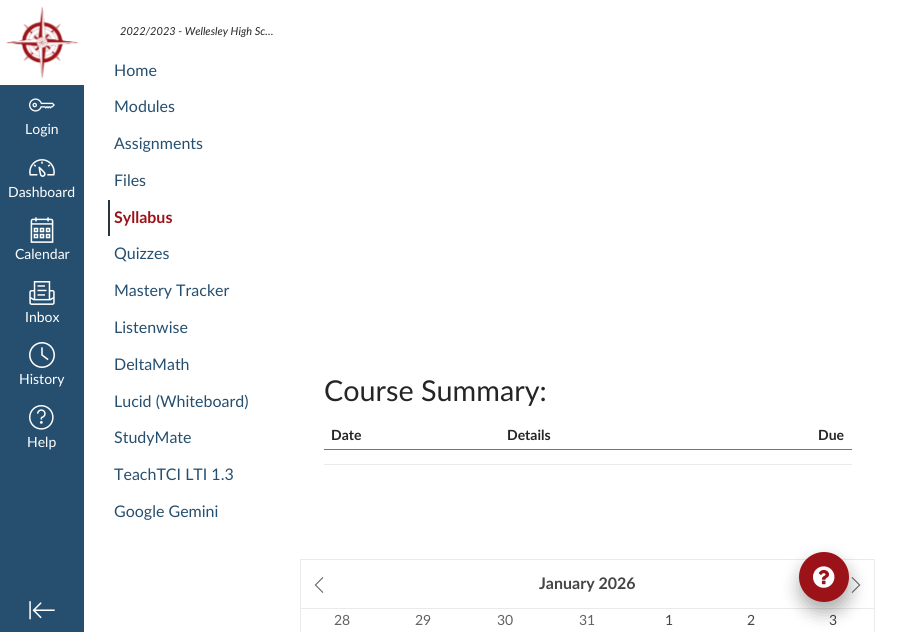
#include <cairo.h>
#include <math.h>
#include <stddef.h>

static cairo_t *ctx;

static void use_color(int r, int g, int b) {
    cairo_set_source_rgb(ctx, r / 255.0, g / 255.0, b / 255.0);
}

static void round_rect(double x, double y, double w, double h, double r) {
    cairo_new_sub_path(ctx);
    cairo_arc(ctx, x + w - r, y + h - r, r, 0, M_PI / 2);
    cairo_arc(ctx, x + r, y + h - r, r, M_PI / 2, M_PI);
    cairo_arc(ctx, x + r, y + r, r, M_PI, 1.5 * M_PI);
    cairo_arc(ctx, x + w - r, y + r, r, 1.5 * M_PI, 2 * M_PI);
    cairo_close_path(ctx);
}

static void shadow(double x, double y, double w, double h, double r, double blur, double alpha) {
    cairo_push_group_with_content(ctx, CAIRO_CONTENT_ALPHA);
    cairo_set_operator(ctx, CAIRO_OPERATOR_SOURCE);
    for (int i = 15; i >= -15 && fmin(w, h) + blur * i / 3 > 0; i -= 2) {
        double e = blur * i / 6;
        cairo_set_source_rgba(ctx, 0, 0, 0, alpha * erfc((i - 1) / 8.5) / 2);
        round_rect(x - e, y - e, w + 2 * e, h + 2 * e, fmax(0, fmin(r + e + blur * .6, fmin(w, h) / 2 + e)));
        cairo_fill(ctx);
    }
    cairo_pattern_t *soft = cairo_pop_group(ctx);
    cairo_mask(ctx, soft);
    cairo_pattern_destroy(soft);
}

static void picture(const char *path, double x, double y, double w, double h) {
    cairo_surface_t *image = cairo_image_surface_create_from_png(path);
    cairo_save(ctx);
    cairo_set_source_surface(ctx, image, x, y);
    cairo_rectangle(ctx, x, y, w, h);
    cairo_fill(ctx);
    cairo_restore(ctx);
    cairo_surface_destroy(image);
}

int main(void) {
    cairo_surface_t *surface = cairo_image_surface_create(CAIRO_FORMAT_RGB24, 899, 632);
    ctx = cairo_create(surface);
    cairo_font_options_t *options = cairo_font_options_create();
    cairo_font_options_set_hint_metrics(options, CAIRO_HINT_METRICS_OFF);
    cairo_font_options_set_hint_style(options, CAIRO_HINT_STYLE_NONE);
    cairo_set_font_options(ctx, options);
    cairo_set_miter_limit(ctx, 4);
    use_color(255, 255, 255);
    cairo_paint(ctx);
    use_color(38, 79, 111);
    cairo_rectangle(ctx, 0, 85, 84, 547);
    cairo_fill(ctx);
    picture("img1.png", 6, 6, 73, 73);
    picture("img2.png", 29, 98, 26, 14);
    cairo_select_font_face(ctx, "Lato", CAIRO_FONT_SLANT_NORMAL, CAIRO_FONT_WEIGHT_NORMAL);
    cairo_set_font_size(ctx, 14);
    use_color(255, 255, 255);
    cairo_move_to(ctx, 25, 134);
    cairo_show_text(ctx, "Login");
    picture("img3.png", 29, 159, 26, 18);
    cairo_move_to(ctx, 8, 197);
    cairo_show_text(ctx, "Dashboard");
    picture("img4.png", 30, 217, 24, 26);
    cairo_move_to(ctx, 15, 259);
    cairo_show_text(ctx, "Calendar");
    picture("img5.png", 29, 281, 26, 24);
    cairo_move_to(ctx, 25, 322);
    cairo_show_text(ctx, "Inbox");
    picture("img6.png", 29, 342, 26, 26);
    cairo_move_to(ctx, 19, 384);
    cairo_show_text(ctx, "History");
    picture("img7.png", 29, 405, 25, 25);
    cairo_move_to(ctx, 27, 447);
    cairo_show_text(ctx, "Help");
    picture("img8.png", 29, 601, 26, 19);
    cairo_select_font_face(ctx, "Lato", CAIRO_FONT_SLANT_ITALIC, CAIRO_FONT_WEIGHT_NORMAL);
    cairo_set_font_size(ctx, 11);
    use_color(37, 37, 37);
    cairo_move_to(ctx, 120, 35);
    cairo_show_text(ctx, "2022/2023 - Wellesley High Sc…");
    cairo_select_font_face(ctx, "Lato", CAIRO_FONT_SLANT_NORMAL, CAIRO_FONT_WEIGHT_NORMAL);
    cairo_set_font_size(ctx, 16);
    use_color(38, 79, 111);
    cairo_move_to(ctx, 114, 76);
    cairo_show_text(ctx, "Home");
    cairo_move_to(ctx, 114, 112);
    cairo_show_text(ctx, "Modules");
    cairo_move_to(ctx, 114, 149);
    cairo_show_text(ctx, "Assignments");
    cairo_move_to(ctx, 114, 186);
    cairo_show_text(ctx, "Files");
    use_color(39, 53, 64);
    cairo_rectangle(ctx, 108, 200, 2, 36);
    cairo_fill(ctx);
    cairo_select_font_face(ctx, "Lato", CAIRO_FONT_SLANT_NORMAL, CAIRO_FONT_WEIGHT_BOLD);
    use_color(155, 19, 24);
    cairo_move_to(ctx, 114, 223);
    cairo_show_text(ctx, "Syllabus");
    cairo_select_font_face(ctx, "Lato", CAIRO_FONT_SLANT_NORMAL, CAIRO_FONT_WEIGHT_NORMAL);
    use_color(38, 79, 111);
    cairo_move_to(ctx, 114, 259);
    cairo_show_text(ctx, "Quizzes");
    cairo_move_to(ctx, 114, 296);
    cairo_show_text(ctx, "Mastery Tracker");
    cairo_move_to(ctx, 114, 333);
    cairo_show_text(ctx, "Listenwise");
    cairo_move_to(ctx, 114, 370);
    cairo_show_text(ctx, "DeltaMath");
    cairo_move_to(ctx, 114, 407);
    cairo_show_text(ctx, "Lucid (Whiteboard)");
    cairo_move_to(ctx, 114, 443);
    cairo_show_text(ctx, "StudyMate");
    cairo_move_to(ctx, 114, 480);
    cairo_show_text(ctx, "TeachTCI LTI 1.3");
    cairo_move_to(ctx, 114, 517);
    cairo_show_text(ctx, "Google Gemini");
    cairo_set_font_size(ctx, 28.75);
    use_color(37, 37, 37);
    cairo_move_to(ctx, 324, 401);
    cairo_show_text(ctx, "Course Summary:");
    cairo_select_font_face(ctx, "Lato", CAIRO_FONT_SLANT_NORMAL, CAIRO_FONT_WEIGHT_BOLD);
    cairo_set_font_size(ctx, 14);
    cairo_move_to(ctx, 331, 440);
    cairo_show_text(ctx, "Date");
    cairo_move_to(ctx, 507, 440);
    cairo_show_text(ctx, "Details");
    use_color(106, 120, 131);
    cairo_rectangle(ctx, 324, 449, 528, 1);
    cairo_fill(ctx);
    use_color(37, 37, 37);
    cairo_move_to(ctx, 818, 440);
    cairo_show_text(ctx, "Due");
    use_color(232, 234, 236);
    cairo_rectangle(ctx, 324, 464, 528, 1);
    cairo_fill(ctx);
    cairo_rectangle(ctx, 300.5, 559.5, 574, 49);
    cairo_set_line_width(ctx, 1);
    cairo_stroke(ctx);
    picture("img9.png", 314, 577, 10, 16);
    cairo_set_font_size(ctx, 16);
    use_color(69, 69, 69);
    cairo_move_to(ctx, 539, 589);
    cairo_show_text(ctx, "January 2026");
    picture("img10.png", 851, 577, 10, 16);
    use_color(232, 234, 236);
    cairo_rectangle(ctx, 874, 609, 1, 23);
    cairo_fill(ctx);
    cairo_rectangle(ctx, 300, 609, 1, 23);
    cairo_fill(ctx);
    cairo_select_font_face(ctx, "Lato", CAIRO_FONT_SLANT_NORMAL, CAIRO_FONT_WEIGHT_NORMAL);
    cairo_set_font_size(ctx, 14);
    use_color(98, 98, 98);
    cairo_move_to(ctx, 334, 625);
    cairo_show_text(ctx, "28");
    cairo_move_to(ctx, 415, 625);
    cairo_show_text(ctx, "29");
    cairo_move_to(ctx, 497, 625);
    cairo_show_text(ctx, "30");
    cairo_move_to(ctx, 579, 625);
    cairo_show_text(ctx, "31");
    use_color(69, 69, 69);
    cairo_move_to(ctx, 665, 625);
    cairo_show_text(ctx, "1");
    cairo_move_to(ctx, 747, 625);
    cairo_show_text(ctx, "2");
    cairo_move_to(ctx, 829, 625);
    cairo_show_text(ctx, "3");
    use_color(0, 0, 0);
    shadow(800, 562, 50, 50, 25, 9, 0.32);
    use_color(155, 19, 24);
    cairo_arc(ctx, 824, 577, 25, 0, 2 * M_PI);
    cairo_fill(ctx);
    picture("img11.png", 813, 566, 22, 22);
    cairo_surface_write_to_png(surface, "result.png");
    cairo_font_options_destroy(options);
    cairo_destroy(ctx);
    cairo_surface_destroy(surface);
    return 0;
}
